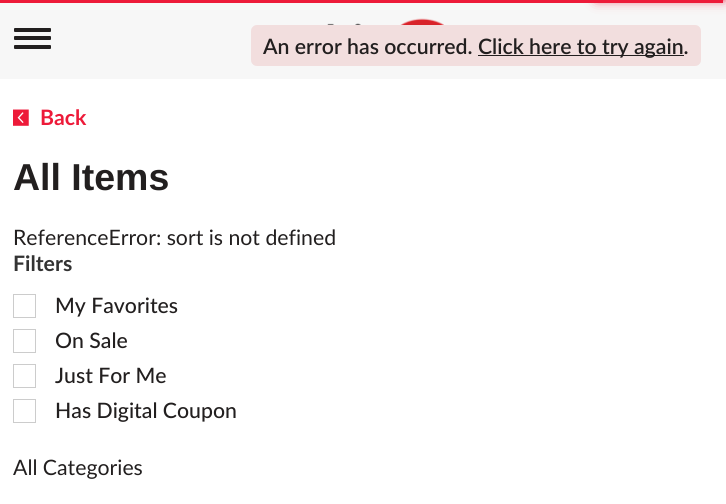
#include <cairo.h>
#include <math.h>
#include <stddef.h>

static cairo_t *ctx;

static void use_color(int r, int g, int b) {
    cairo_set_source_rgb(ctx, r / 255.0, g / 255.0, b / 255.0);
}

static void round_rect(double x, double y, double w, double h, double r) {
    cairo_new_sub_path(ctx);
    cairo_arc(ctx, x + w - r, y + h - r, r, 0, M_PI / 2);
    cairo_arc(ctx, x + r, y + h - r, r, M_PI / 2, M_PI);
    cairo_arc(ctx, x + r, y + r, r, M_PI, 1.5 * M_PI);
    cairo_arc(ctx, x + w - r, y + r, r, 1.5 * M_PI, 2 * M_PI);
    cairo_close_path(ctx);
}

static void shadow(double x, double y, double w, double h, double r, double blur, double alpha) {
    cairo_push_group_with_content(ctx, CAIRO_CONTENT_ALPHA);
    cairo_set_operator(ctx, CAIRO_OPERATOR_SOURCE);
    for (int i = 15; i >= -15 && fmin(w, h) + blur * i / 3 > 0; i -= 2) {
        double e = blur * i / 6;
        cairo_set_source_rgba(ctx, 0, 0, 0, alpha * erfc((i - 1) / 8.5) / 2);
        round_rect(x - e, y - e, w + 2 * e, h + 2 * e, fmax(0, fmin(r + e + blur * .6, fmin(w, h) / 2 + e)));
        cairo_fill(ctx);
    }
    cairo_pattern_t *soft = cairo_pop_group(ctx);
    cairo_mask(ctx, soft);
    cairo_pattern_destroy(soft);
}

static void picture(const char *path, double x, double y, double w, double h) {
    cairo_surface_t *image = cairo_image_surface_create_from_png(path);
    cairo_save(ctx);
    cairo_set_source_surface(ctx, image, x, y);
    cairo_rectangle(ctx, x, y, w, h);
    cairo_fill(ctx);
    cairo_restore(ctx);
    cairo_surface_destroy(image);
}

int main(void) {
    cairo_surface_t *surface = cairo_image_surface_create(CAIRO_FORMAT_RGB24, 726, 504);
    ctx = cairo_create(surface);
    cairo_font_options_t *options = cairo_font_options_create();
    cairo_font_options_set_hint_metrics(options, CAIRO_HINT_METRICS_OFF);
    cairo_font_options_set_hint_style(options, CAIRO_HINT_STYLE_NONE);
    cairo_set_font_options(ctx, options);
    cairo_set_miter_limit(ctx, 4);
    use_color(255, 255, 255);
    cairo_paint(ctx);
    use_color(247, 247, 247);
    cairo_rectangle(ctx, 0, 0, 726, 79);
    cairo_fill(ctx);
    use_color(237, 26, 57);
    cairo_rectangle(ctx, 0, 0, 723, 3);
    cairo_fill(ctx);
    use_color(237, 26, 57);
    shadow(598, -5, 125, 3, 0, 3, 1);
    shadow(598, -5, 125, 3, 0, 6.5, 1);
    use_color(242, 222, 222);
    round_rect(251, 25, 450, 41, 6);
    cairo_fill(ctx);
    cairo_select_font_face(ctx, "Lato SemiBold", CAIRO_FONT_SLANT_NORMAL, CAIRO_FONT_WEIGHT_NORMAL);
    cairo_set_font_size(ctx, 21.25);
    use_color(34, 31, 31);
    cairo_move_to(ctx, 263, 54);
    cairo_show_text(ctx, "An error has occurred.");
    cairo_rectangle(ctx, 478, 55, 206, 1);
    cairo_fill(ctx);
    cairo_move_to(ctx, 478, 54);
    cairo_show_text(ctx, "Click here to try again.");
    picture("img1.png", 327, 18, 117, 7);
    round_rect(14, 28, 37, 4, 1);
    cairo_fill(ctx);
    round_rect(14, 36, 37, 4, 1);
    cairo_fill(ctx);
    round_rect(14, 45, 37, 4, 1);
    cairo_fill(ctx);
    picture("img2.png", 13, 109, 16, 17);
    cairo_select_font_face(ctx, "Lato", CAIRO_FONT_SLANT_NORMAL, CAIRO_FONT_WEIGHT_BOLD);
    use_color(237, 26, 57);
    cairo_move_to(ctx, 40, 125);
    cairo_show_text(ctx, "Back");
    cairo_select_font_face(ctx, "Liberation Sans", CAIRO_FONT_SLANT_NORMAL, CAIRO_FONT_WEIGHT_BOLD);
    cairo_set_font_size(ctx, 37.5);
    use_color(34, 31, 31);
    cairo_move_to(ctx, 13, 190);
    cairo_show_text(ctx, "All Items");
    cairo_select_font_face(ctx, "Lato", CAIRO_FONT_SLANT_NORMAL, CAIRO_FONT_WEIGHT_NORMAL);
    cairo_set_font_size(ctx, 21.25);
    cairo_move_to(ctx, 13, 245);
    cairo_show_text(ctx, "ReferenceError: sort is not defined");
    cairo_select_font_face(ctx, "Lato", CAIRO_FONT_SLANT_NORMAL, CAIRO_FONT_WEIGHT_BOLD);
    use_color(51, 51, 51);
    cairo_move_to(ctx, 13, 271);
    cairo_show_text(ctx, "Filters");
    cairo_rectangle(ctx, 13.5, 294.5, 22, 23);
    use_color(204, 204, 204);
    cairo_set_line_width(ctx, 1);
    cairo_stroke(ctx);
    cairo_select_font_face(ctx, "Lato Medium", CAIRO_FONT_SLANT_NORMAL, CAIRO_FONT_WEIGHT_NORMAL);
    use_color(34, 31, 31);
    cairo_move_to(ctx, 55, 313);
    cairo_show_text(ctx, "My Favorites");
    cairo_rectangle(ctx, 13.5, 329.5, 22, 23);
    use_color(204, 204, 204);
    cairo_stroke(ctx);
    use_color(34, 31, 31);
    cairo_move_to(ctx, 55, 348);
    cairo_show_text(ctx, "On Sale");
    cairo_rectangle(ctx, 13.5, 364.5, 22, 23);
    use_color(204, 204, 204);
    cairo_stroke(ctx);
    use_color(34, 31, 31);
    cairo_move_to(ctx, 55, 383);
    cairo_show_text(ctx, "Just For Me");
    cairo_rectangle(ctx, 13.5, 399.5, 22, 23);
    use_color(204, 204, 204);
    cairo_stroke(ctx);
    use_color(34, 31, 31);
    cairo_move_to(ctx, 55, 418);
    cairo_show_text(ctx, "Has Digital Coupon");
    cairo_select_font_face(ctx, "Lato", CAIRO_FONT_SLANT_NORMAL, CAIRO_FONT_WEIGHT_NORMAL);
    cairo_move_to(ctx, 13, 475);
    cairo_show_text(ctx, "All Categories");
    cairo_surface_write_to_png(surface, "result.png");
    cairo_font_options_destroy(options);
    cairo_destroy(ctx);
    cairo_surface_destroy(surface);
    return 0;
}
